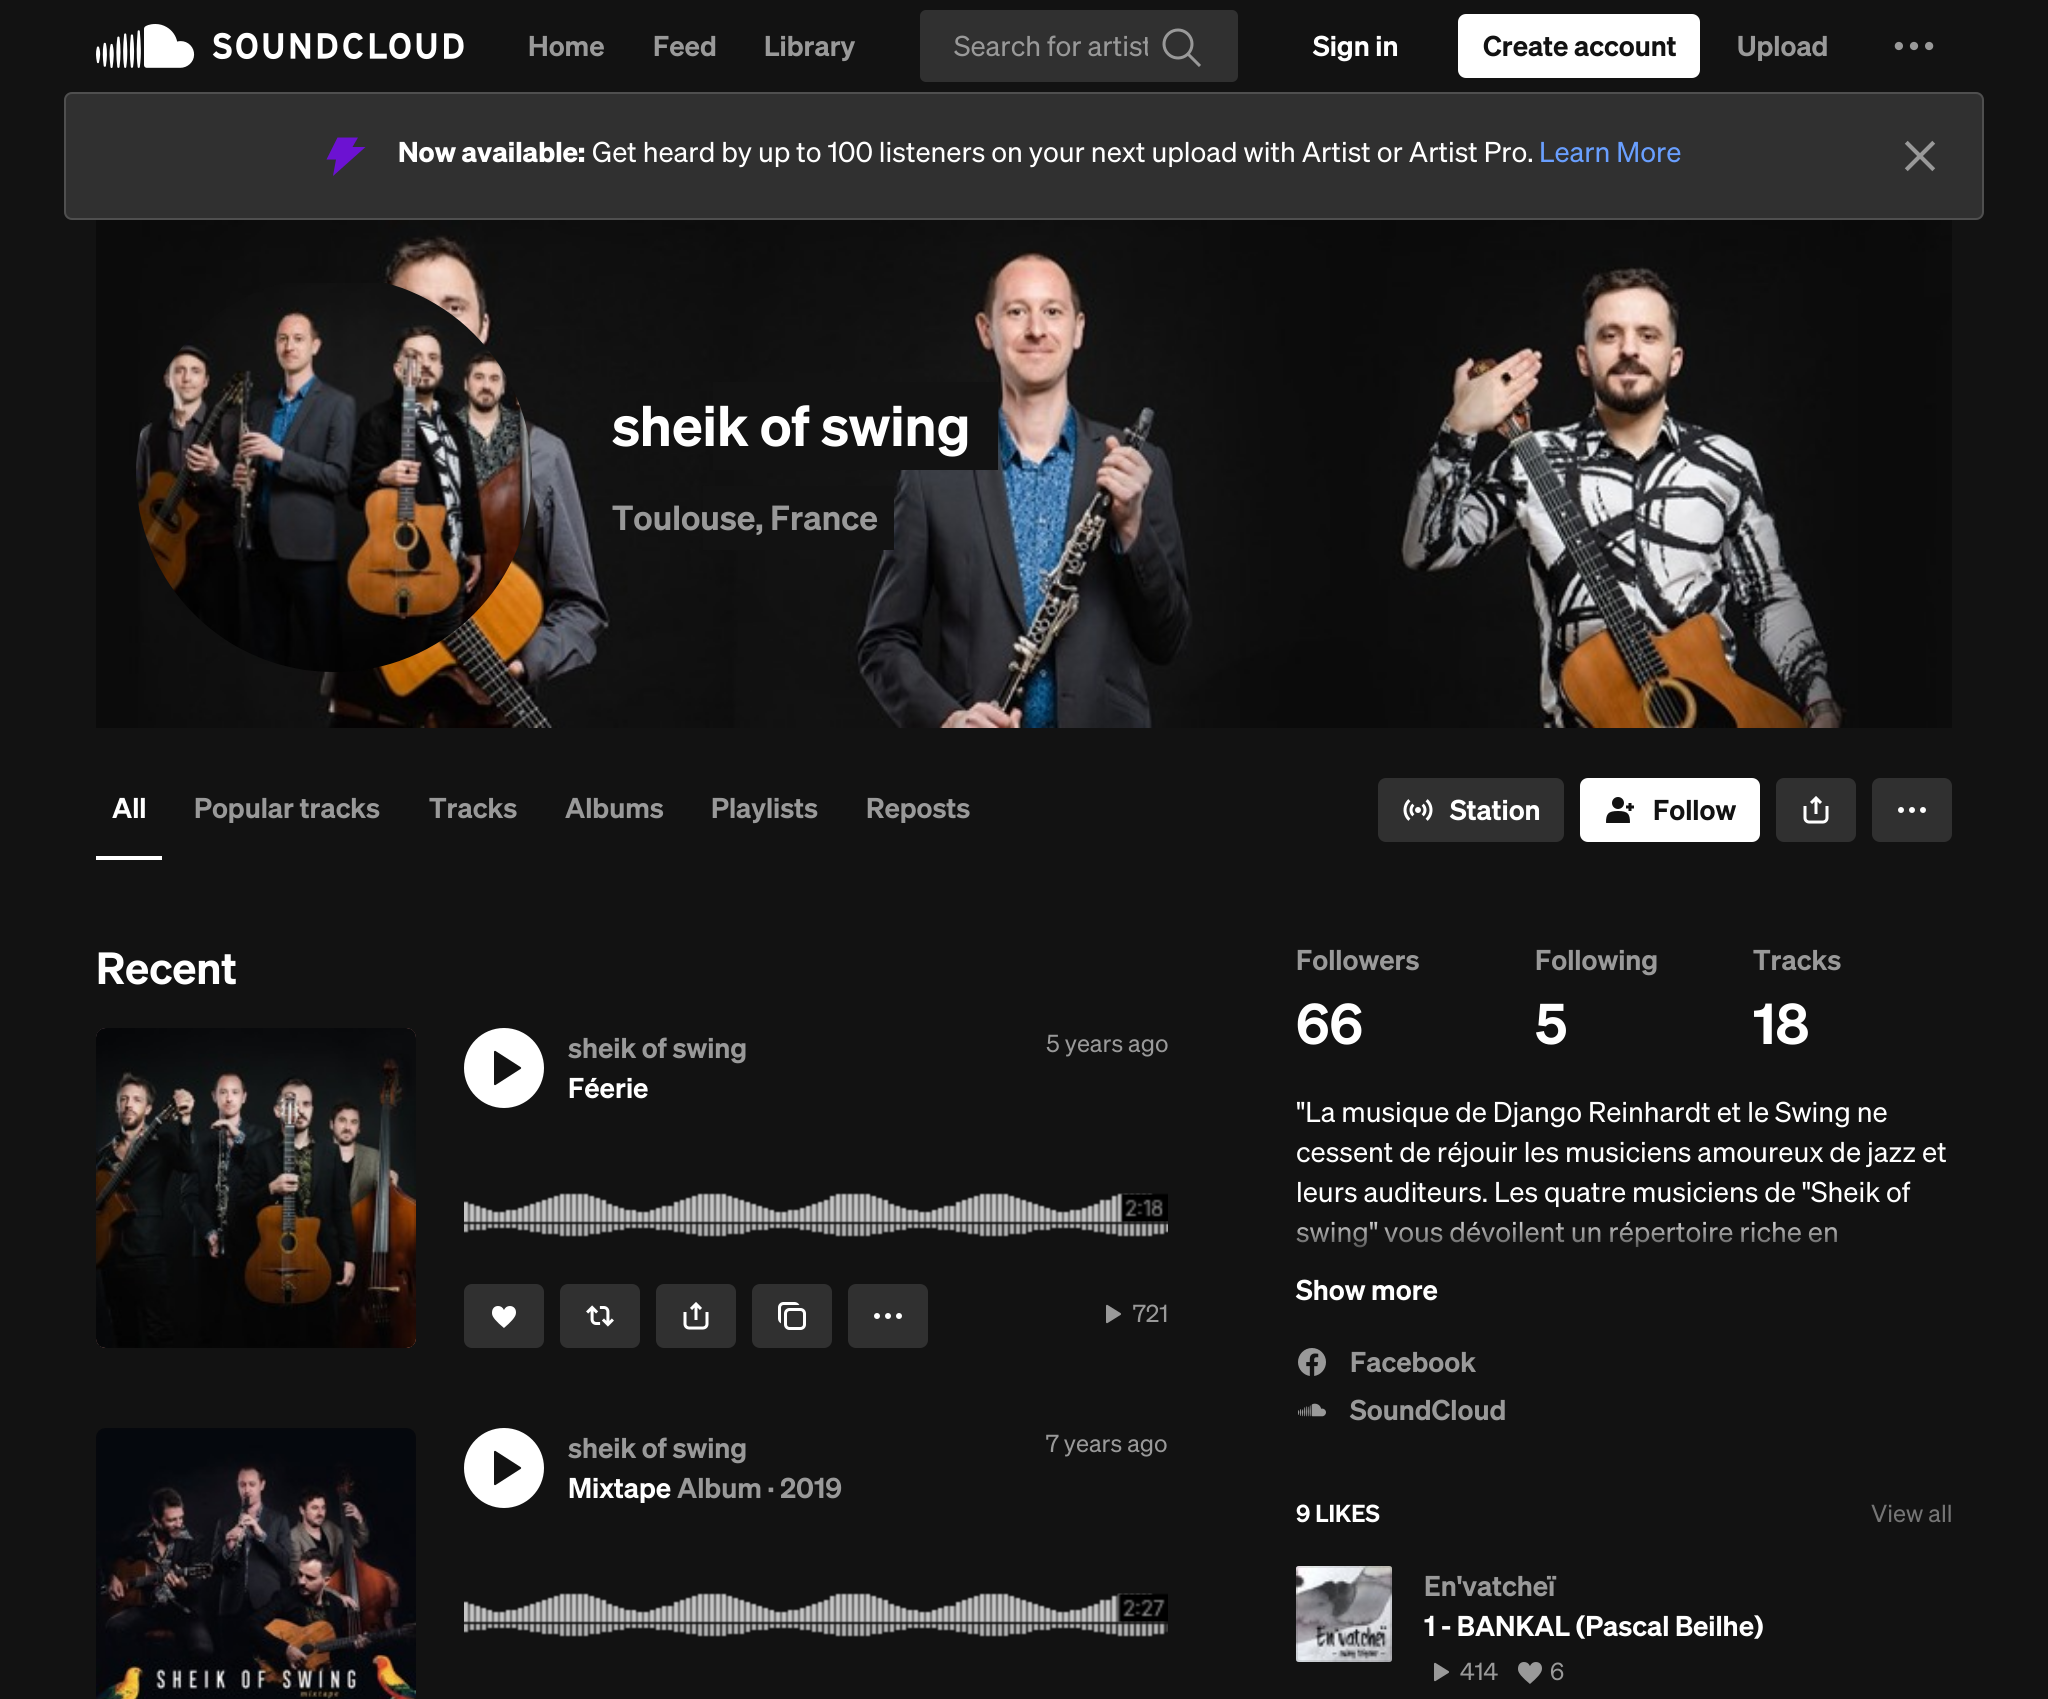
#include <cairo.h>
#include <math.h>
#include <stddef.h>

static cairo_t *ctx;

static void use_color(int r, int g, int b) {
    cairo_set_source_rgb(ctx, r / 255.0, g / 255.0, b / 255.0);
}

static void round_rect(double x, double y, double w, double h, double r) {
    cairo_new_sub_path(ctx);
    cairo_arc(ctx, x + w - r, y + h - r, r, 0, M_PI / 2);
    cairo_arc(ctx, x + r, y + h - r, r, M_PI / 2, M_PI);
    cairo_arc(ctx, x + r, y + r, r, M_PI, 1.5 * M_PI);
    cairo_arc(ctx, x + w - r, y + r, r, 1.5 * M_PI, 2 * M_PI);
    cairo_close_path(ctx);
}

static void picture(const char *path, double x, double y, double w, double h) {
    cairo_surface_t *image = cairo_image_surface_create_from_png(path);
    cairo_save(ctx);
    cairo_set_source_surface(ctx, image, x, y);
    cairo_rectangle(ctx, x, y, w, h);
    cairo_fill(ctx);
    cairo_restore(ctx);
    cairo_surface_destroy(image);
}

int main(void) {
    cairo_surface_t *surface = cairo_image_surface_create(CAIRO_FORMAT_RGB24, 2048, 1699);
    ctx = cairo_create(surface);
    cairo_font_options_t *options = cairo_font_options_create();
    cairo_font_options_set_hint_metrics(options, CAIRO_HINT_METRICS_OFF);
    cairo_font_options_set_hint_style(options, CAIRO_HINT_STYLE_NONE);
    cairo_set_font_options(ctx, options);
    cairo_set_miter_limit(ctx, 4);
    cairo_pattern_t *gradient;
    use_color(18, 18, 18);
    cairo_paint(ctx);
    picture("img1.png", 96, 24, 368, 44);
    cairo_select_font_face(ctx, "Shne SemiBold", CAIRO_FONT_SLANT_NORMAL, CAIRO_FONT_WEIGHT_NORMAL);
    cairo_set_font_size(ctx, 28);
    use_color(153, 153, 153);
    cairo_move_to(ctx, 528, 56);
    cairo_show_text(ctx, "Home");
    cairo_move_to(ctx, 653, 56);
    cairo_show_text(ctx, "Feed");
    cairo_move_to(ctx, 764, 56);
    cairo_show_text(ctx, "Library");
    use_color(48, 48, 48);
    round_rect(920, 10, 318, 72, 6);
    cairo_fill(ctx);
    cairo_save(ctx);
    cairo_rectangle(ctx, 954, 24, 194, 44);
    cairo_clip(ctx);
    cairo_select_font_face(ctx, "Shne", CAIRO_FONT_SLANT_NORMAL, CAIRO_FONT_WEIGHT_NORMAL);
    use_color(153, 153, 153);
    cairo_move_to(ctx, 954, 56);
    cairo_show_text(ctx, "Search for artist");
    cairo_restore(ctx);
    picture("img2.png", 1162, 28, 39, 39);
    use_color(255, 255, 255);
    cairo_move_to(ctx, 1313, 56);
    cairo_show_text(ctx, "Sign in");
    round_rect(1458, 14, 242, 64, 8);
    cairo_fill(ctx);
    use_color(18, 18, 18);
    cairo_move_to(ctx, 1483, 56);
    cairo_show_text(ctx, "Create account");
    use_color(153, 153, 153);
    cairo_move_to(ctx, 1737, 56);
    cairo_show_text(ctx, "Upload");
    picture("img3.png", 1894, 41, 40, 10);
    use_color(48, 48, 48);
    round_rect(64, 92, 1920, 128, 8);
    cairo_fill(ctx);
    round_rect(65, 93, 1918, 126, 7);
    cairo_set_source_rgba(ctx, 1, 1, 1, 0.15);
    cairo_stroke(ctx);
    use_color(108, 18, 210);
    cairo_new_path(ctx);
    cairo_move_to(ctx, 337.5, 137.5);
    cairo_line_to(ctx, 326.5, 159.5);
    cairo_line_to(ctx, 336, 159.5);
    cairo_line_to(ctx, 333, 176);
    cairo_line_to(ctx, 365.5, 147);
    cairo_line_to(ctx, 352.5, 147);
    cairo_line_to(ctx, 358, 137.5);
    cairo_close_path(ctx);
    cairo_fill(ctx);
    cairo_select_font_face(ctx, "Shne", CAIRO_FONT_SLANT_NORMAL, CAIRO_FONT_WEIGHT_BOLD);
    use_color(255, 255, 255);
    cairo_move_to(ctx, 398, 162);
    cairo_show_text(ctx, "Now available:");
    cairo_select_font_face(ctx, "Shne", CAIRO_FONT_SLANT_NORMAL, CAIRO_FONT_WEIGHT_NORMAL);
    cairo_move_to(ctx, 592, 162);
    cairo_show_text(ctx, "Get heard by up to 100 listeners on your next upload with Artist or Artist Pro.");
    use_color(105, 159, 255);
    cairo_move_to(ctx, 1539, 162);
    cairo_show_text(ctx, "Learn More");
    picture("img4.png", 1904, 140, 32, 32);
    picture("img5.png", 96, 220, 1856, 508);
    picture("img6.png", 136, 283, 396, 389);
    use_color(18, 18, 18);
    cairo_rectangle(ctx, 713, 382, 285, 88);
    cairo_fill(ctx);
    cairo_select_font_face(ctx, "Shne SemiBold", CAIRO_FONT_SLANT_NORMAL, CAIRO_FONT_WEIGHT_NORMAL);
    cairo_set_font_size(ctx, 56);
    use_color(255, 255, 255);
    cairo_move_to(ctx, 612, 446);
    cairo_show_text(ctx, "sheik of swing");
    use_color(18, 18, 18);
    cairo_rectangle(ctx, 703, 486, 191, 64);
    cairo_fill(ctx);
    cairo_set_font_size(ctx, 34);
    use_color(153, 153, 153);
    cairo_move_to(ctx, 612, 530);
    cairo_show_text(ctx, "Toulouse, France");
    use_color(255, 255, 255);
    cairo_rectangle(ctx, 96, 856, 66, 4);
    cairo_fill(ctx);
    cairo_set_font_size(ctx, 28);
    cairo_move_to(ctx, 112, 818);
    cairo_show_text(ctx, "All");
    use_color(153, 153, 153);
    cairo_move_to(ctx, 194, 818);
    cairo_show_text(ctx, "Popular tracks");
    cairo_move_to(ctx, 429, 818);
    cairo_show_text(ctx, "Tracks");
    cairo_move_to(ctx, 565, 818);
    cairo_show_text(ctx, "Albums");
    cairo_move_to(ctx, 711, 818);
    cairo_show_text(ctx, "Playlists");
    cairo_move_to(ctx, 866, 818);
    cairo_show_text(ctx, "Reposts");
    use_color(48, 48, 48);
    round_rect(1378, 778, 186, 64, 8);
    cairo_fill(ctx);
    picture("img7.png", 1403, 799, 30, 22);
    use_color(255, 255, 255);
    cairo_move_to(ctx, 1450, 820);
    cairo_show_text(ctx, "Station");
    round_rect(1580, 778, 180, 64, 8);
    cairo_fill(ctx);
    picture("img8.png", 1606, 797, 28, 26);
    use_color(18, 18, 18);
    cairo_move_to(ctx, 1653, 820);
    cairo_show_text(ctx, "Follow");
    use_color(48, 48, 48);
    round_rect(1776, 778, 80, 64, 8);
    cairo_fill(ctx);
    picture("img9.png", 1803, 796, 26, 28);
    round_rect(1872, 778, 80, 64, 8);
    cairo_fill(ctx);
    picture("img10.png", 1898, 807, 28, 6);
    cairo_set_font_size(ctx, 44);
    use_color(255, 255, 255);
    cairo_move_to(ctx, 96, 984);
    cairo_show_text(ctx, "Recent");
    gradient = cairo_pattern_create_linear(96, 1028, 416, 1348);
    cairo_pattern_add_color_stop_rgba(gradient, 0, 0.518, 0.38, 0.439, 1);
    cairo_pattern_add_color_stop_rgba(gradient, 1, 0.902, 0.518, 0.431, 1);
    cairo_set_source(ctx, gradient);
    cairo_pattern_destroy(gradient);
    round_rect(96, 1028, 320, 320, 10);
    cairo_fill(ctx);
    picture("img11.png", 96, 1028, 320, 320);
    round_rect(97, 1029, 318, 318, 9);
    cairo_set_source_rgba(ctx, 0.071, 0.071, 0.071, 0.1);
    cairo_stroke(ctx);
    use_color(255, 255, 255);
    cairo_arc(ctx, 504, 1068, 40, 0, 2 * M_PI);
    cairo_fill(ctx);
    picture("img12.png", 494, 1050, 28, 36);
    cairo_set_font_size(ctx, 28);
    use_color(153, 153, 153);
    cairo_move_to(ctx, 568, 1058);
    cairo_show_text(ctx, "sheik of swing");
    use_color(255, 255, 255);
    cairo_move_to(ctx, 568, 1098);
    cairo_show_text(ctx, "Féerie");
    cairo_select_font_face(ctx, "Shne", CAIRO_FONT_SLANT_NORMAL, CAIRO_FONT_WEIGHT_NORMAL);
    cairo_set_font_size(ctx, 24);
    use_color(153, 153, 153);
    cairo_move_to(ctx, 1046, 1052);
    cairo_show_text(ctx, "5 years ago");
    picture("img13.png", 464, 1193, 704, 44);
    picture("img14.png", 1119, 1193, 49, 30);
    use_color(48, 48, 48);
    round_rect(464, 1284, 80, 64, 8);
    cairo_fill(ctx);
    picture("img15.png", 492, 1306, 24, 22);
    round_rect(560, 1284, 80, 64, 8);
    cairo_fill(ctx);
    picture("img16.png", 586, 1305, 28, 22);
    round_rect(656, 1284, 80, 64, 8);
    cairo_fill(ctx);
    picture("img9.png", 683, 1302, 26, 28);
    round_rect(752, 1284, 80, 64, 8);
    cairo_fill(ctx);
    picture("img17.png", 778, 1302, 28, 28);
    round_rect(848, 1284, 80, 64, 8);
    cairo_fill(ctx);
    picture("img10.png", 874, 1313, 28, 6);
    picture("img18.png", 1106, 1304, 15, 20);
    use_color(153, 153, 153);
    cairo_move_to(ctx, 1133, 1322);
    cairo_show_text(ctx, "721");
    picture("img19.png", 96, 1428, 320, 271);
    round_rect(97, 1429, 318, 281, 9);
    cairo_set_source_rgba(ctx, 0.071, 0.071, 0.071, 0.1);
    cairo_stroke(ctx);
    use_color(255, 255, 255);
    cairo_arc(ctx, 504, 1468, 40, 0, 2 * M_PI);
    cairo_fill(ctx);
    picture("img12.png", 494, 1450, 28, 36);
    cairo_select_font_face(ctx, "Shne SemiBold", CAIRO_FONT_SLANT_NORMAL, CAIRO_FONT_WEIGHT_NORMAL);
    cairo_set_font_size(ctx, 28);
    use_color(153, 153, 153);
    cairo_move_to(ctx, 568, 1458);
    cairo_show_text(ctx, "sheik of swing");
    use_color(255, 255, 255);
    cairo_move_to(ctx, 568, 1498);
    cairo_show_text(ctx, "Mixtape");
    use_color(153, 153, 153);
    cairo_move_to(ctx, 677, 1498);
    cairo_show_text(ctx, "Album · 2019");
    cairo_select_font_face(ctx, "Shne", CAIRO_FONT_SLANT_NORMAL, CAIRO_FONT_WEIGHT_NORMAL);
    cairo_set_font_size(ctx, 24);
    cairo_move_to(ctx, 1046, 1452);
    cairo_show_text(ctx, "7 years ago");
    picture("img20.png", 464, 1593, 704, 44);
    picture("img21.png", 1117, 1593, 51, 30);
    cairo_select_font_face(ctx, "Shne SemiBold", CAIRO_FONT_SLANT_NORMAL, CAIRO_FONT_WEIGHT_NORMAL);
    cairo_set_font_size(ctx, 28);
    cairo_move_to(ctx, 1296, 970);
    cairo_show_text(ctx, "Followers");
    cairo_set_font_size(ctx, 56);
    use_color(255, 255, 255);
    cairo_move_to(ctx, 1296, 1044);
    cairo_show_text(ctx, "66");
    cairo_set_font_size(ctx, 28);
    use_color(153, 153, 153);
    cairo_move_to(ctx, 1535, 970);
    cairo_show_text(ctx, "Following");
    cairo_set_font_size(ctx, 56);
    use_color(255, 255, 255);
    cairo_move_to(ctx, 1535, 1044);
    cairo_show_text(ctx, "5");
    cairo_set_font_size(ctx, 28);
    use_color(153, 153, 153);
    cairo_move_to(ctx, 1753, 970);
    cairo_show_text(ctx, "Tracks");
    cairo_set_font_size(ctx, 56);
    use_color(255, 255, 255);
    cairo_move_to(ctx, 1753, 1044);
    cairo_show_text(ctx, "18");
    cairo_select_font_face(ctx, "Shne", CAIRO_FONT_SLANT_NORMAL, CAIRO_FONT_WEIGHT_NORMAL);
    cairo_set_font_size(ctx, 28);
    cairo_move_to(ctx, 1296, 1122);
    cairo_show_text(ctx, "\"La musique de Django Reinhardt et le Swing ne");
    cairo_move_to(ctx, 1296, 1162);
    cairo_show_text(ctx, "cessent de réjouir les musiciens amoureux de jazz et");
    cairo_move_to(ctx, 1296, 1202);
    cairo_show_text(ctx, "leurs auditeurs. Les quatre musiciens de \"Sheik of");
    cairo_move_to(ctx, 1296, 1242);
    cairo_show_text(ctx, "swing\" vous dévoilent un répertoire riche en");
    gradient = cairo_pattern_create_linear(1624, 1212, 1624, 1262);
    cairo_pattern_add_color_stop_rgba(gradient, 0, 0.071, 0.071, 0.071, 0);
    cairo_pattern_add_color_stop_rgba(gradient, 1, 0.071, 0.071, 0.071, 1);
    cairo_set_source(ctx, gradient);
    cairo_pattern_destroy(gradient);
    cairo_rectangle(ctx, 1296, 1221, 541, 27);
    cairo_fill(ctx);
    cairo_select_font_face(ctx, "Shne SemiBold", CAIRO_FONT_SLANT_NORMAL, CAIRO_FONT_WEIGHT_NORMAL);
    use_color(255, 255, 255);
    cairo_move_to(ctx, 1296, 1300);
    cairo_show_text(ctx, "Show more");
    picture("img22.png", 1298, 1348, 28, 28);
    use_color(153, 153, 153);
    cairo_move_to(ctx, 1350, 1372);
    cairo_show_text(ctx, "Facebook");
    picture("img23.png", 1298, 1403, 28, 14);
    cairo_move_to(ctx, 1350, 1420);
    cairo_show_text(ctx, "SoundCloud");
    cairo_set_font_size(ctx, 24);
    use_color(255, 255, 255);
    cairo_move_to(ctx, 1296, 1522);
    cairo_show_text(ctx, "9 LIKES");
    cairo_select_font_face(ctx, "Shne", CAIRO_FONT_SLANT_NORMAL, CAIRO_FONT_WEIGHT_NORMAL);
    use_color(117, 117, 117);
    cairo_move_to(ctx, 1871, 1522);
    cairo_show_text(ctx, "View all");
    picture("img24.png", 1296, 1566, 96, 96);
    round_rect(1297, 1567, 94, 94, 2);
    cairo_set_source_rgba(ctx, 0.071, 0.071, 0.071, 0.1);
    cairo_stroke(ctx);
    cairo_select_font_face(ctx, "Shne SemiBold", CAIRO_FONT_SLANT_NORMAL, CAIRO_FONT_WEIGHT_NORMAL);
    cairo_set_font_size(ctx, 28);
    use_color(153, 153, 153);
    cairo_move_to(ctx, 1424, 1596);
    cairo_show_text(ctx, "En'vatcheï");
    use_color(255, 255, 255);
    cairo_move_to(ctx, 1424, 1636);
    cairo_show_text(ctx, "1 - BANKAL (Pascal Beilhe)");
    picture("img18.png", 1434, 1662, 15, 20);
    cairo_select_font_face(ctx, "Shne", CAIRO_FONT_SLANT_NORMAL, CAIRO_FONT_WEIGHT_NORMAL);
    cairo_set_font_size(ctx, 24);
    use_color(153, 153, 153);
    cairo_move_to(ctx, 1460, 1680);
    cairo_show_text(ctx, "414");
    picture("img25.png", 1518, 1662, 24, 22);
    cairo_move_to(ctx, 1550, 1680);
    cairo_show_text(ctx, "6");
    cairo_surface_write_to_png(surface, "result.png");
    cairo_font_options_destroy(options);
    cairo_destroy(ctx);
    cairo_surface_destroy(surface);
    return 0;
}
